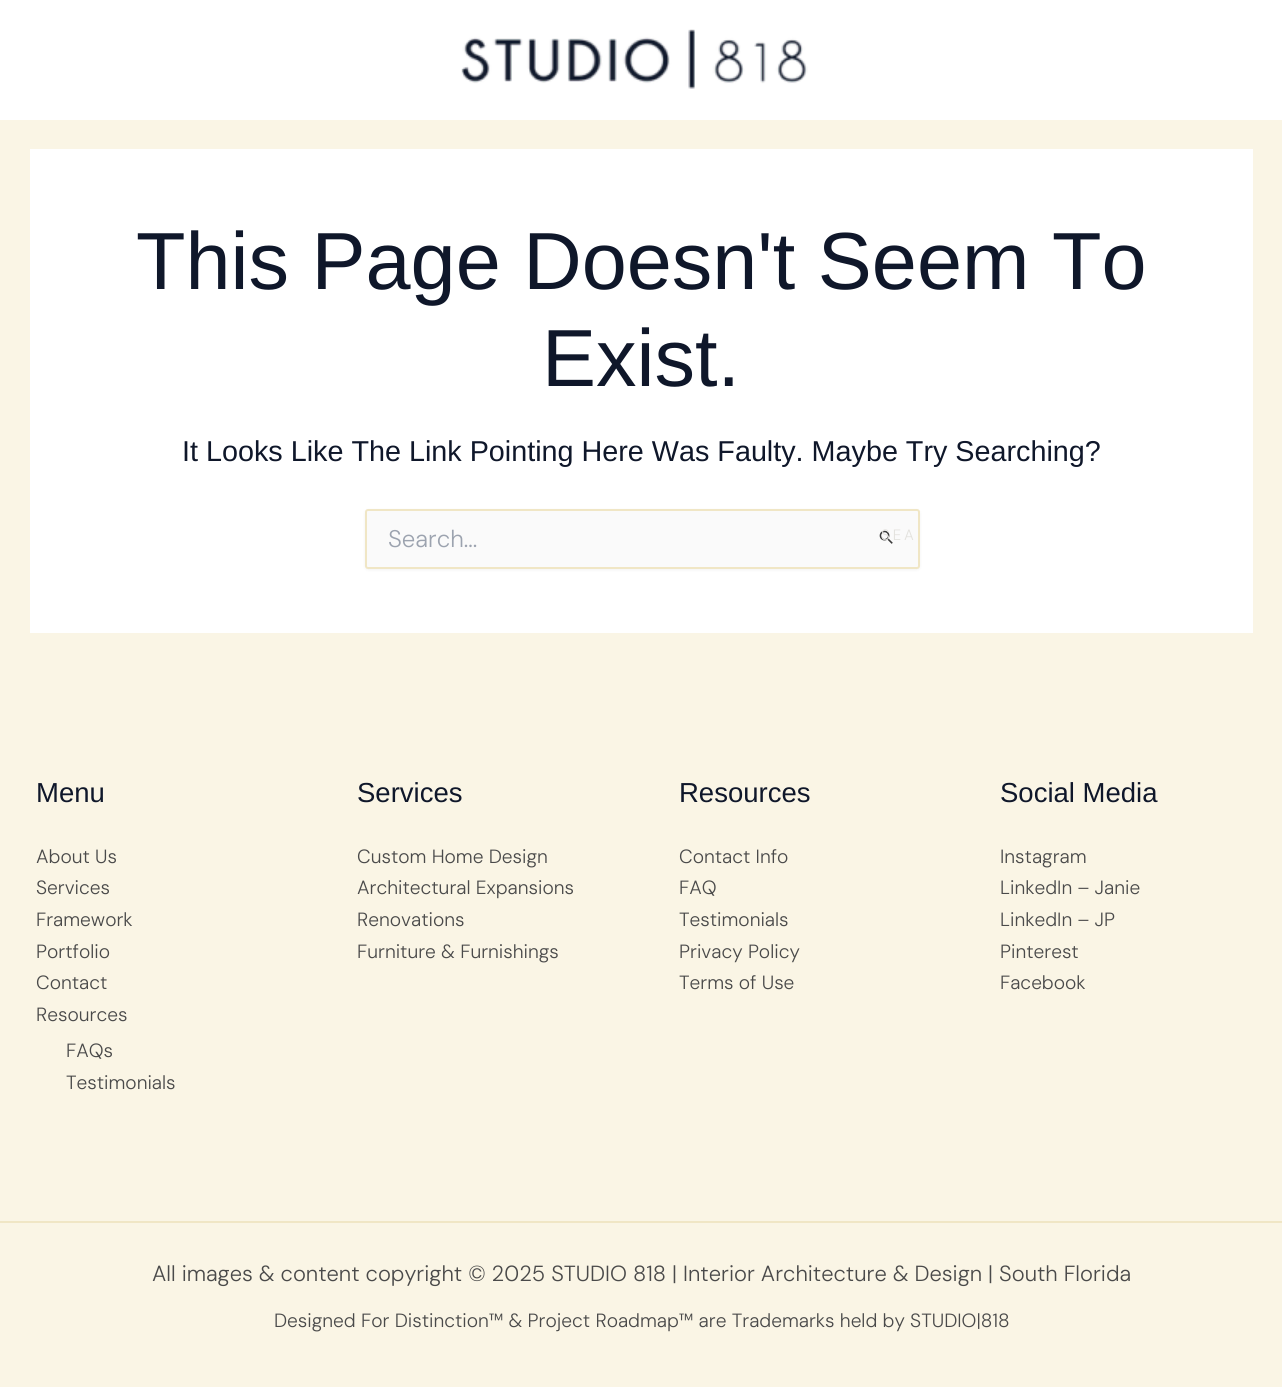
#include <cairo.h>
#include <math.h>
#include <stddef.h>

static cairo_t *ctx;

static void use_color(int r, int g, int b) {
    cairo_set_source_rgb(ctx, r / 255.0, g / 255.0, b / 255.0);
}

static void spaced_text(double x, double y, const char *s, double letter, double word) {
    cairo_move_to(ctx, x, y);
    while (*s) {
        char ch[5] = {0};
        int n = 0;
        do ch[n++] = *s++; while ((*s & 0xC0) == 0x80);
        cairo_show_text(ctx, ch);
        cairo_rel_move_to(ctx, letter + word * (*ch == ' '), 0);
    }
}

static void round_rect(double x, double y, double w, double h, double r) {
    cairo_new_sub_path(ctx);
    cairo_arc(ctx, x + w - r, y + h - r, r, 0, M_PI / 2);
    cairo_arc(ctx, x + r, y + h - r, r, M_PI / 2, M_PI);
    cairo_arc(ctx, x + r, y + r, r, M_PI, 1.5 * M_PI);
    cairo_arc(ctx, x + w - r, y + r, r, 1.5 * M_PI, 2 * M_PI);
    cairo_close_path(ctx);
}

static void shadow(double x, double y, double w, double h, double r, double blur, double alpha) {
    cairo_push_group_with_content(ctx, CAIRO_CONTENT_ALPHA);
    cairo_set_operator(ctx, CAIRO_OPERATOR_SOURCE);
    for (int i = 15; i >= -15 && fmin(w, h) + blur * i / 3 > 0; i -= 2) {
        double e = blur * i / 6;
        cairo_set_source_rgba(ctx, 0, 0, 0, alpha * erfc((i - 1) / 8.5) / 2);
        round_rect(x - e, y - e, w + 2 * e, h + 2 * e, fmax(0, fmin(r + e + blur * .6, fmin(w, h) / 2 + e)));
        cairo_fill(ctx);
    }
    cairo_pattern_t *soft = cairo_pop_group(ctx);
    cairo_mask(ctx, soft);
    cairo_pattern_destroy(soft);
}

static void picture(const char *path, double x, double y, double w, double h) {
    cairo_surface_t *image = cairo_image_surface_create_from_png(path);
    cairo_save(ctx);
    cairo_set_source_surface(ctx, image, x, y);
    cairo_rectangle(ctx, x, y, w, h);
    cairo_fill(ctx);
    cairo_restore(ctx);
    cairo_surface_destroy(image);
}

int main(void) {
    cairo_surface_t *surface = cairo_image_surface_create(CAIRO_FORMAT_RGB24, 1282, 1387);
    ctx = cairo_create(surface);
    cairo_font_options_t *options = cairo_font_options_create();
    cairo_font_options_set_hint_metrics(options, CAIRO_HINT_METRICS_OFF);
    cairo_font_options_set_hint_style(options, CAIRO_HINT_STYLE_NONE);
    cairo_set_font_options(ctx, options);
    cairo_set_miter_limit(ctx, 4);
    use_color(250, 245, 229);
    cairo_paint(ctx);
    use_color(255, 255, 255);
    cairo_rectangle(ctx, 0, 0, 1282, 120);
    cairo_fill(ctx);
    picture("img1.png", 461, 29, 347, 60);
    cairo_rectangle(ctx, 30, 149, 1223, 484);
    cairo_fill(ctx);
    cairo_select_font_face(ctx, "Liberation Sans", CAIRO_FONT_SLANT_NORMAL, CAIRO_FONT_WEIGHT_NORMAL);
    cairo_set_font_size(ctx, 81);
    use_color(15, 23, 42);
    cairo_move_to(ctx, 136, 289);
    cairo_show_text(ctx, "This Page Doesn't Seem To");
    cairo_move_to(ctx, 542, 386);
    cairo_show_text(ctx, "Exist.");
    cairo_set_font_size(ctx, 28.75);
    cairo_move_to(ctx, 182, 461);
    cairo_show_text(ctx, "It Looks Like The Link Pointing Here Was Faulty. Maybe Try Searching?");
    use_color(0, 0, 0);
    shadow(365, 510, 555, 60, 3, 1.5, 0.05);
    use_color(250, 250, 250);
    round_rect(366, 510, 553, 58, 2);
    cairo_fill_preserve(ctx);
    use_color(240, 230, 197);
    cairo_stroke(ctx);
    cairo_select_font_face(ctx, "DM Sans Light", CAIRO_FONT_SLANT_NORMAL, CAIRO_FONT_WEIGHT_NORMAL);
    cairo_set_font_size(ctx, 24);
    use_color(156, 163, 175);
    cairo_move_to(ctx, 388, 547);
    cairo_show_text(ctx, "Search...");
    picture("img2.png", 879, 530, 14, 14);
    cairo_set_font_size(ctx, 15);
    use_color(227, 226, 222);
    spaced_text(881, 540, "SEA", 3, 0);
    cairo_select_font_face(ctx, "Liberation Sans", CAIRO_FONT_SLANT_NORMAL, CAIRO_FONT_WEIGHT_NORMAL);
    cairo_set_font_size(ctx, 27.5);
    use_color(15, 23, 42);
    cairo_move_to(ctx, 36, 802);
    cairo_show_text(ctx, "Menu");
    cairo_select_font_face(ctx, "DM Sans Light", CAIRO_FONT_SLANT_NORMAL, CAIRO_FONT_WEIGHT_NORMAL);
    cairo_set_font_size(ctx, 19.15);
    use_color(74, 74, 74);
    cairo_move_to(ctx, 36, 863);
    cairo_show_text(ctx, "About Us");
    cairo_move_to(ctx, 36, 894);
    cairo_show_text(ctx, "Services");
    cairo_move_to(ctx, 36, 926);
    cairo_show_text(ctx, "Framework");
    cairo_move_to(ctx, 36, 958);
    cairo_show_text(ctx, "Portfolio");
    cairo_move_to(ctx, 36, 989);
    cairo_show_text(ctx, "Contact");
    cairo_move_to(ctx, 36, 1021);
    cairo_show_text(ctx, "Resources");
    cairo_move_to(ctx, 66, 1057);
    cairo_show_text(ctx, "FAQs");
    cairo_move_to(ctx, 66, 1089);
    cairo_show_text(ctx, "Testimonials");
    cairo_select_font_face(ctx, "Liberation Sans", CAIRO_FONT_SLANT_NORMAL, CAIRO_FONT_WEIGHT_NORMAL);
    cairo_set_font_size(ctx, 27.5);
    use_color(15, 23, 42);
    cairo_move_to(ctx, 357, 802);
    cairo_show_text(ctx, "Services");
    cairo_select_font_face(ctx, "DM Sans Light", CAIRO_FONT_SLANT_NORMAL, CAIRO_FONT_WEIGHT_NORMAL);
    cairo_set_font_size(ctx, 19.15);
    use_color(74, 74, 74);
    cairo_move_to(ctx, 357, 863);
    cairo_show_text(ctx, "Custom Home Design");
    cairo_move_to(ctx, 357, 894);
    cairo_show_text(ctx, "Architectural Expansions");
    cairo_move_to(ctx, 357, 926);
    cairo_show_text(ctx, "Renovations");
    cairo_move_to(ctx, 357, 958);
    cairo_show_text(ctx, "Furniture & Furnishings");
    cairo_select_font_face(ctx, "Liberation Sans", CAIRO_FONT_SLANT_NORMAL, CAIRO_FONT_WEIGHT_NORMAL);
    cairo_set_font_size(ctx, 27.5);
    use_color(15, 23, 42);
    cairo_move_to(ctx, 679, 802);
    cairo_show_text(ctx, "Resources");
    cairo_select_font_face(ctx, "DM Sans Light", CAIRO_FONT_SLANT_NORMAL, CAIRO_FONT_WEIGHT_NORMAL);
    cairo_set_font_size(ctx, 19.15);
    use_color(74, 74, 74);
    cairo_move_to(ctx, 679, 863);
    cairo_show_text(ctx, "Contact Info");
    cairo_move_to(ctx, 679, 894);
    cairo_show_text(ctx, "FAQ");
    cairo_move_to(ctx, 679, 926);
    cairo_show_text(ctx, "Testimonials");
    cairo_move_to(ctx, 679, 958);
    cairo_show_text(ctx, "Privacy Policy");
    cairo_move_to(ctx, 679, 989);
    cairo_show_text(ctx, "Terms of Use");
    cairo_select_font_face(ctx, "Liberation Sans", CAIRO_FONT_SLANT_NORMAL, CAIRO_FONT_WEIGHT_NORMAL);
    cairo_set_font_size(ctx, 27.5);
    use_color(15, 23, 42);
    cairo_move_to(ctx, 1000, 802);
    cairo_show_text(ctx, "Social Media");
    cairo_select_font_face(ctx, "DM Sans Light", CAIRO_FONT_SLANT_NORMAL, CAIRO_FONT_WEIGHT_NORMAL);
    cairo_set_font_size(ctx, 19.15);
    use_color(74, 74, 74);
    cairo_move_to(ctx, 1000, 863);
    cairo_show_text(ctx, "Instagram");
    cairo_move_to(ctx, 1000, 894);
    cairo_show_text(ctx, "LinkedIn – Janie");
    cairo_move_to(ctx, 1000, 926);
    cairo_show_text(ctx, "LinkedIn – JP");
    cairo_move_to(ctx, 1000, 958);
    cairo_show_text(ctx, "Pinterest");
    cairo_move_to(ctx, 1000, 989);
    cairo_show_text(ctx, "Facebook");
    use_color(240, 230, 197);
    cairo_rectangle(ctx, 0, 1221, 1282, 2);
    cairo_fill(ctx);
    cairo_set_font_size(ctx, 21.9);
    use_color(74, 74, 74);
    cairo_move_to(ctx, 152, 1281);
    cairo_show_text(ctx, "All images & content copyright © 2025 STUDIO 818 | Interior Architecture & Design | South Florida");
    cairo_set_font_size(ctx, 19.15);
    cairo_move_to(ctx, 274, 1327);
    cairo_show_text(ctx, "Designed For Distinction™ & Project Roadmap™ are Trademarks held by STUDIO|818");
    cairo_surface_write_to_png(surface, "result.png");
    cairo_font_options_destroy(options);
    cairo_destroy(ctx);
    cairo_surface_destroy(surface);
    return 0;
}
